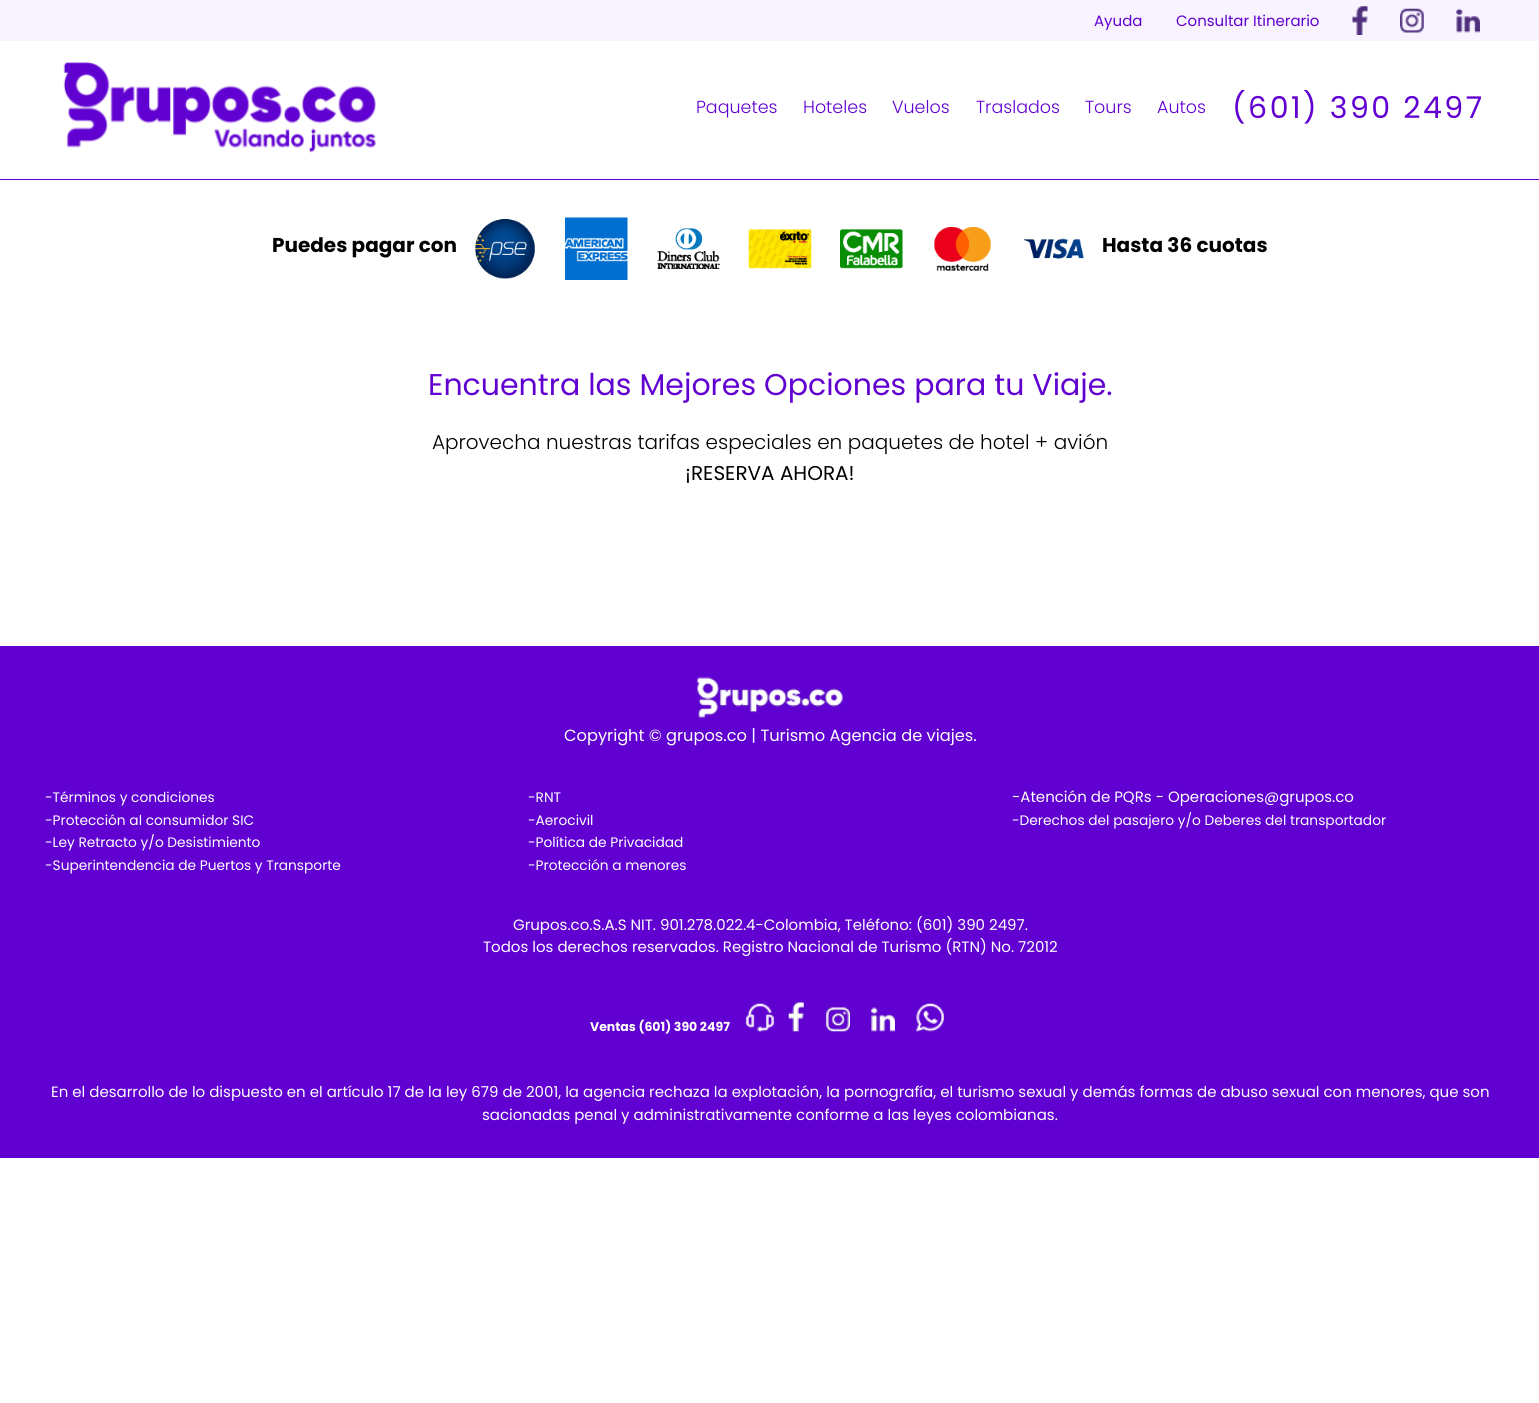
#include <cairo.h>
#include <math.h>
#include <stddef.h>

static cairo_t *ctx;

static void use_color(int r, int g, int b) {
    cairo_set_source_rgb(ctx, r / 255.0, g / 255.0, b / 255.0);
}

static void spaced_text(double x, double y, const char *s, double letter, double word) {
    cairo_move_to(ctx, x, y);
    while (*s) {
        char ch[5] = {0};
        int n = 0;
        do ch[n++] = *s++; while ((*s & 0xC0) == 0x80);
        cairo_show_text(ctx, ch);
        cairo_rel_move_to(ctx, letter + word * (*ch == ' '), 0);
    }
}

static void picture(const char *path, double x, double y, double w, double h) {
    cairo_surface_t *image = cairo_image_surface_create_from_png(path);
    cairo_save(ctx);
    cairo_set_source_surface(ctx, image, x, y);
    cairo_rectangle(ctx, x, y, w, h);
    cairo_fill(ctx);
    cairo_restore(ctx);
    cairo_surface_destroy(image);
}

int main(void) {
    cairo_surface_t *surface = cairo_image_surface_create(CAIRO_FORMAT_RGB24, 1539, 1403);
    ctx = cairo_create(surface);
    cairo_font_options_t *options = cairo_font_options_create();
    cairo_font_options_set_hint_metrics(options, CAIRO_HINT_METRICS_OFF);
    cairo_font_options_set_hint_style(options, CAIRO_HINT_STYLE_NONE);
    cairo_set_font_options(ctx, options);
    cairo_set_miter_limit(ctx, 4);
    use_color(255, 255, 255);
    cairo_paint(ctx);
    use_color(97, 1, 209);
    cairo_rectangle(ctx, 0, 179, 1539, 1);
    cairo_fill(ctx);
    use_color(248, 243, 255);
    cairo_rectangle(ctx, 0, 0, 1539, 41);
    cairo_fill(ctx);
    cairo_select_font_face(ctx, "Poppins", CAIRO_FONT_SLANT_NORMAL, CAIRO_FONT_WEIGHT_NORMAL);
    cairo_set_font_size(ctx, 15);
    use_color(97, 1, 209);
    cairo_move_to(ctx, 1094, 26);
    cairo_show_text(ctx, "Ayuda");
    cairo_move_to(ctx, 1176, 26);
    cairo_show_text(ctx, "Consultar Itinerario");
    picture("img1.png", 1352, 6, 16, 29);
    picture("img2.png", 1400, 8, 24, 25);
    picture("img3.png", 1456, 8, 24, 25);
    picture("img4.png", 63, 62, 314, 91);
    cairo_select_font_face(ctx, "Poppins Light", CAIRO_FONT_SLANT_NORMAL, CAIRO_FONT_WEIGHT_NORMAL);
    cairo_set_font_size(ctx, 17.5);
    cairo_move_to(ctx, 696, 113);
    cairo_show_text(ctx, "Paquetes");
    cairo_move_to(ctx, 803, 113);
    cairo_show_text(ctx, "Hoteles");
    cairo_move_to(ctx, 892, 113);
    cairo_show_text(ctx, "Vuelos");
    cairo_move_to(ctx, 976, 113);
    cairo_show_text(ctx, "Traslados");
    cairo_move_to(ctx, 1085, 113);
    cairo_show_text(ctx, "Tours");
    cairo_move_to(ctx, 1157, 113);
    cairo_show_text(ctx, "Autos");
    cairo_select_font_face(ctx, "Poppins", CAIRO_FONT_SLANT_NORMAL, CAIRO_FONT_WEIGHT_NORMAL);
    cairo_set_font_size(ctx, 30);
    spaced_text(1232, 118, "(601) 390 2497", 2.5, 0);
    cairo_select_font_face(ctx, "Poppins", CAIRO_FONT_SLANT_NORMAL, CAIRO_FONT_WEIGHT_BOLD);
    cairo_set_font_size(ctx, 20);
    use_color(0, 0, 0);
    cairo_move_to(ctx, 272, 252);
    cairo_show_text(ctx, "Puedes pagar con");
    picture("img5.png", 474, 219, 61, 60);
    picture("img6.png", 565, 217, 63, 63);
    picture("img7.png", 657, 228, 63, 41);
    picture("img8.png", 748, 229, 64, 40);
    picture("img9.png", 840, 229, 63, 40);
    picture("img10.png", 934, 227, 57, 44);
    picture("img11.png", 1024, 238, 60, 21);
    cairo_move_to(ctx, 1102, 252);
    cairo_show_text(ctx, "Hasta 36 cuotas");
    cairo_select_font_face(ctx, "Poppins", CAIRO_FONT_SLANT_NORMAL, CAIRO_FONT_WEIGHT_NORMAL);
    cairo_set_font_size(ctx, 30);
    use_color(97, 1, 209);
    cairo_move_to(ctx, 428, 395);
    cairo_show_text(ctx, "Encuentra las Mejores Opciones para tu Viaje.");
    cairo_select_font_face(ctx, "Poppins Light", CAIRO_FONT_SLANT_NORMAL, CAIRO_FONT_WEIGHT_NORMAL);
    cairo_set_font_size(ctx, 20);
    use_color(0, 0, 0);
    cairo_move_to(ctx, 432, 449);
    cairo_show_text(ctx, "Aprovecha nuestras tarifas especiales en paquetes de hotel + avión");
    cairo_select_font_face(ctx, "Poppins", CAIRO_FONT_SLANT_NORMAL, CAIRO_FONT_WEIGHT_NORMAL);
    cairo_move_to(ctx, 685, 480);
    cairo_show_text(ctx, "¡RESERVA AHORA!");
    use_color(97, 1, 209);
    cairo_rectangle(ctx, 0, 646, 1539, 512);
    cairo_fill(ctx);
    picture("img12.png", 696, 677, 148, 41);
    cairo_set_font_size(ctx, 16.25);
    use_color(255, 255, 255);
    cairo_move_to(ctx, 564, 741);
    cairo_show_text(ctx, "Copyright © grupos.co | Turismo Agencia de viajes.");
    cairo_set_font_size(ctx, 13.75);
    cairo_move_to(ctx, 45, 802);
    cairo_show_text(ctx, "-Términos y condiciones");
    cairo_move_to(ctx, 45, 825);
    cairo_show_text(ctx, "-Protección al consumidor SIC");
    cairo_move_to(ctx, 45, 847);
    cairo_show_text(ctx, "-Ley Retracto y/o Desistimiento");
    cairo_move_to(ctx, 45, 870);
    cairo_show_text(ctx, "-Superintendencia de Puertos y Transporte");
    cairo_move_to(ctx, 528, 802);
    cairo_show_text(ctx, "-RNT");
    cairo_move_to(ctx, 528, 825);
    cairo_show_text(ctx, "-Aerocivil");
    cairo_move_to(ctx, 528, 847);
    cairo_show_text(ctx, "-Política de Privacidad");
    cairo_move_to(ctx, 528, 870);
    cairo_show_text(ctx, "-Protección a menores");
    cairo_set_font_size(ctx, 15);
    cairo_move_to(ctx, 1012, 802);
    cairo_show_text(ctx, "-Atención de PQRs - Operaciones@grupos.co");
    cairo_set_font_size(ctx, 13.75);
    cairo_move_to(ctx, 1012, 825);
    cairo_show_text(ctx, "-Derechos del pasajero y/o Deberes del transportador");
    cairo_set_font_size(ctx, 15);
    cairo_move_to(ctx, 513, 930);
    cairo_show_text(ctx, "Grupos.co.S.A.S NIT. 901.278.022.4-Colombia, Teléfono: (601) 390 2497.");
    cairo_move_to(ctx, 483, 952);
    cairo_show_text(ctx, "Todos los derechos reservados. Registro Nacional de Turismo (RTN) No. 72012");
    cairo_select_font_face(ctx, "Poppins", CAIRO_FONT_SLANT_NORMAL, CAIRO_FONT_WEIGHT_BOLD);
    cairo_set_font_size(ctx, 12.5);
    cairo_move_to(ctx, 590, 1031);
    cairo_show_text(ctx, "Ventas (601) 390 2497");
    picture("img13.png", 746, 1003, 28, 29);
    picture("img14.png", 788, 1002, 16, 30);
    picture("img15.png", 826, 1007, 24, 25);
    picture("img16.png", 871, 1007, 24, 25);
    picture("img17.png", 916, 1003, 28, 29);
    cairo_select_font_face(ctx, "Poppins", CAIRO_FONT_SLANT_NORMAL, CAIRO_FONT_WEIGHT_NORMAL);
    cairo_set_font_size(ctx, 15);
    cairo_move_to(ctx, 51, 1097);
    cairo_show_text(ctx, "En el desarrollo de lo dispuesto en el artículo 17 de la ley 679 de 2001, la agencia rechaza la explotación, la pornografía, el turismo sexual y demás formas de abuso sexual con menores, que son");
    cairo_move_to(ctx, 482, 1120);
    cairo_show_text(ctx, "sacionadas penal y administrativamente conforme a las leyes colombianas.");
    cairo_surface_write_to_png(surface, "result.png");
    cairo_font_options_destroy(options);
    cairo_destroy(ctx);
    cairo_surface_destroy(surface);
    return 0;
}
